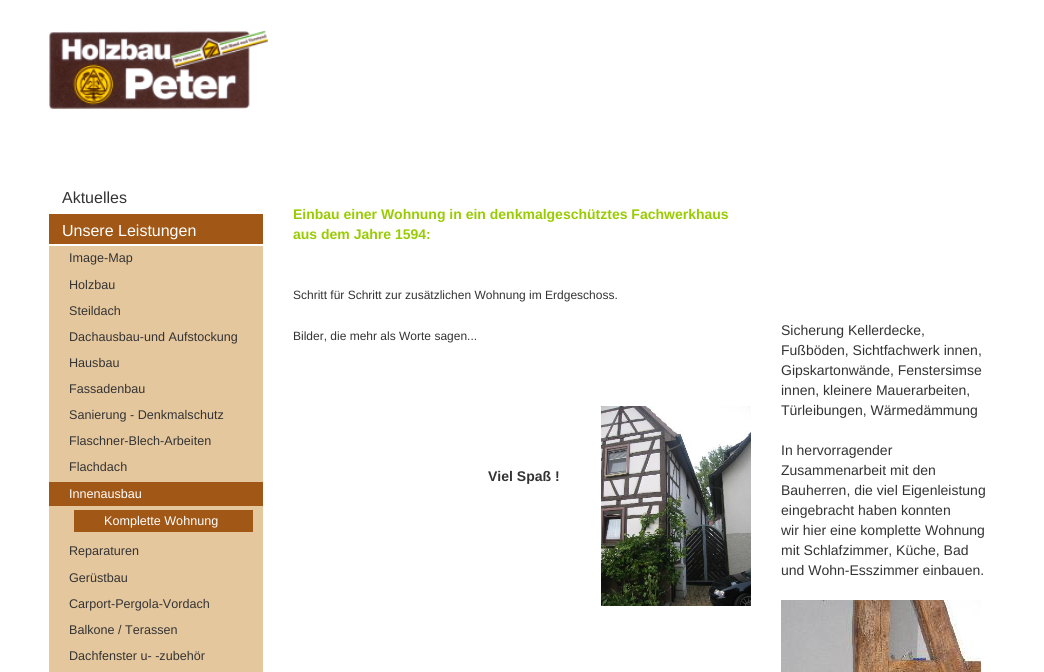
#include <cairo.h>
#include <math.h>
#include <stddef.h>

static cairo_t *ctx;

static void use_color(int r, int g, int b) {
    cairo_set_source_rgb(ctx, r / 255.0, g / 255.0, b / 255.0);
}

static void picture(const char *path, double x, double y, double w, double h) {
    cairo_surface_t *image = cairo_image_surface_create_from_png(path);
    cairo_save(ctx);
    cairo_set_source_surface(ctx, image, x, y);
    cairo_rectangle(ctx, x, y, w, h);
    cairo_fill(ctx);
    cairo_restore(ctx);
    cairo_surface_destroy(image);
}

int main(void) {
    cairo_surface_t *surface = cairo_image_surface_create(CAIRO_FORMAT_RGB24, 1044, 672);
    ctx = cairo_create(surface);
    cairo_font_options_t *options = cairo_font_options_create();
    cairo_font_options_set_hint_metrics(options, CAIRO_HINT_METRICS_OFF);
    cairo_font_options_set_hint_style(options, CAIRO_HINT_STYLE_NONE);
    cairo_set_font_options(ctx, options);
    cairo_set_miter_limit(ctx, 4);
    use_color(255, 255, 255);
    cairo_paint(ctx);
    picture("img1.png", 49, 30, 219, 79);
    cairo_select_font_face(ctx, "Liberation Sans", CAIRO_FONT_SLANT_NORMAL, CAIRO_FONT_WEIGHT_NORMAL);
    cairo_set_font_size(ctx, 16);
    use_color(51, 51, 51);
    cairo_move_to(ctx, 62, 203);
    cairo_show_text(ctx, "Aktuelles");
    use_color(161, 87, 22);
    cairo_rectangle(ctx, 49, 214, 214, 30);
    cairo_fill(ctx);
    use_color(255, 255, 255);
    cairo_move_to(ctx, 62, 236);
    cairo_show_text(ctx, "Unsere Leistungen");
    use_color(229, 199, 158);
    cairo_rectangle(ctx, 49, 246, 214, 426);
    cairo_fill(ctx);
    cairo_set_font_size(ctx, 12.6);
    use_color(51, 51, 51);
    cairo_move_to(ctx, 69, 262);
    cairo_show_text(ctx, "Image-Map");
    cairo_move_to(ctx, 69, 289);
    cairo_show_text(ctx, "Holzbau");
    cairo_move_to(ctx, 69, 315);
    cairo_show_text(ctx, "Steildach");
    cairo_move_to(ctx, 69, 341);
    cairo_show_text(ctx, "Dachausbau-und Aufstockung");
    cairo_move_to(ctx, 69, 367);
    cairo_show_text(ctx, "Hausbau");
    cairo_move_to(ctx, 69, 393);
    cairo_show_text(ctx, "Fassadenbau");
    cairo_move_to(ctx, 69, 419);
    cairo_show_text(ctx, "Sanierung - Denkmalschutz");
    cairo_move_to(ctx, 69, 445);
    cairo_show_text(ctx, "Flaschner-Blech-Arbeiten");
    cairo_move_to(ctx, 69, 471);
    cairo_show_text(ctx, "Flachdach");
    use_color(161, 87, 22);
    cairo_rectangle(ctx, 49, 482, 214, 24);
    cairo_fill(ctx);
    use_color(255, 255, 255);
    cairo_move_to(ctx, 69, 498);
    cairo_show_text(ctx, "Innenausbau");
    use_color(161, 87, 22);
    cairo_rectangle(ctx, 74, 510, 179, 22);
    cairo_fill(ctx);
    use_color(255, 255, 255);
    cairo_move_to(ctx, 104, 525);
    cairo_show_text(ctx, "Komplette Wohnung");
    use_color(51, 51, 51);
    cairo_move_to(ctx, 69, 555);
    cairo_show_text(ctx, "Reparaturen");
    cairo_move_to(ctx, 69, 582);
    cairo_show_text(ctx, "Gerüstbau");
    cairo_move_to(ctx, 69, 608);
    cairo_show_text(ctx, "Carport-Pergola-Vordach");
    cairo_move_to(ctx, 69, 634);
    cairo_show_text(ctx, "Balkone / Terassen");
    cairo_move_to(ctx, 69, 660);
    cairo_show_text(ctx, "Dachfenster u- -zubehör");
    cairo_select_font_face(ctx, "Liberation Sans", CAIRO_FONT_SLANT_NORMAL, CAIRO_FONT_WEIGHT_BOLD);
    cairo_set_font_size(ctx, 14);
    use_color(153, 204, 0);
    cairo_move_to(ctx, 293, 219);
    cairo_show_text(ctx, "Einbau einer Wohnung in ein denkmalgeschütztes Fachwerkhaus");
    cairo_move_to(ctx, 293, 239);
    cairo_show_text(ctx, "aus dem Jahre 1594:");
    cairo_select_font_face(ctx, "Liberation Sans", CAIRO_FONT_SLANT_NORMAL, CAIRO_FONT_WEIGHT_NORMAL);
    cairo_set_font_size(ctx, 12);
    use_color(51, 51, 51);
    cairo_move_to(ctx, 293, 299);
    cairo_show_text(ctx, "Schritt für Schritt zur zusätzlichen Wohnung im Erdgeschoss.");
    cairo_move_to(ctx, 293, 340);
    cairo_show_text(ctx, "Bilder, die mehr als Worte sagen...");
    cairo_select_font_face(ctx, "Liberation Sans", CAIRO_FONT_SLANT_NORMAL, CAIRO_FONT_WEIGHT_BOLD);
    cairo_set_font_size(ctx, 14);
    cairo_move_to(ctx, 488, 481);
    cairo_show_text(ctx, "Viel Spaß !");
    picture("img2.png", 601, 406, 150, 200);
    cairo_select_font_face(ctx, "Liberation Sans", CAIRO_FONT_SLANT_NORMAL, CAIRO_FONT_WEIGHT_NORMAL);
    cairo_move_to(ctx, 781, 335);
    cairo_show_text(ctx, "Sicherung Kellerdecke,");
    cairo_move_to(ctx, 781, 355);
    cairo_show_text(ctx, "Fußböden, Sichtfachwerk innen,");
    cairo_move_to(ctx, 781, 375);
    cairo_show_text(ctx, "Gipskartonwände, Fenstersimse");
    cairo_move_to(ctx, 781, 395);
    cairo_show_text(ctx, "innen, kleinere Mauerarbeiten,");
    cairo_move_to(ctx, 781, 415);
    cairo_show_text(ctx, "Türleibungen, Wärmedämmung");
    cairo_move_to(ctx, 781, 455);
    cairo_show_text(ctx, "In hervorragender");
    cairo_move_to(ctx, 781, 475);
    cairo_show_text(ctx, "Zusammenarbeit mit den");
    cairo_move_to(ctx, 781, 495);
    cairo_show_text(ctx, "Bauherren, die viel Eigenleistung");
    cairo_move_to(ctx, 781, 515);
    cairo_show_text(ctx, "eingebracht haben konnten");
    cairo_move_to(ctx, 781, 535);
    cairo_show_text(ctx, "wir hier eine komplette Wohnung");
    cairo_move_to(ctx, 781, 555);
    cairo_show_text(ctx, "mit Schlafzimmer, Küche, Bad");
    cairo_move_to(ctx, 781, 575);
    cairo_show_text(ctx, "und Wohn-Esszimmer einbauen.");
    picture("img3.png", 781, 600, 200, 72);
    cairo_surface_write_to_png(surface, "result.png");
    cairo_font_options_destroy(options);
    cairo_destroy(ctx);
    cairo_surface_destroy(surface);
    return 0;
}
